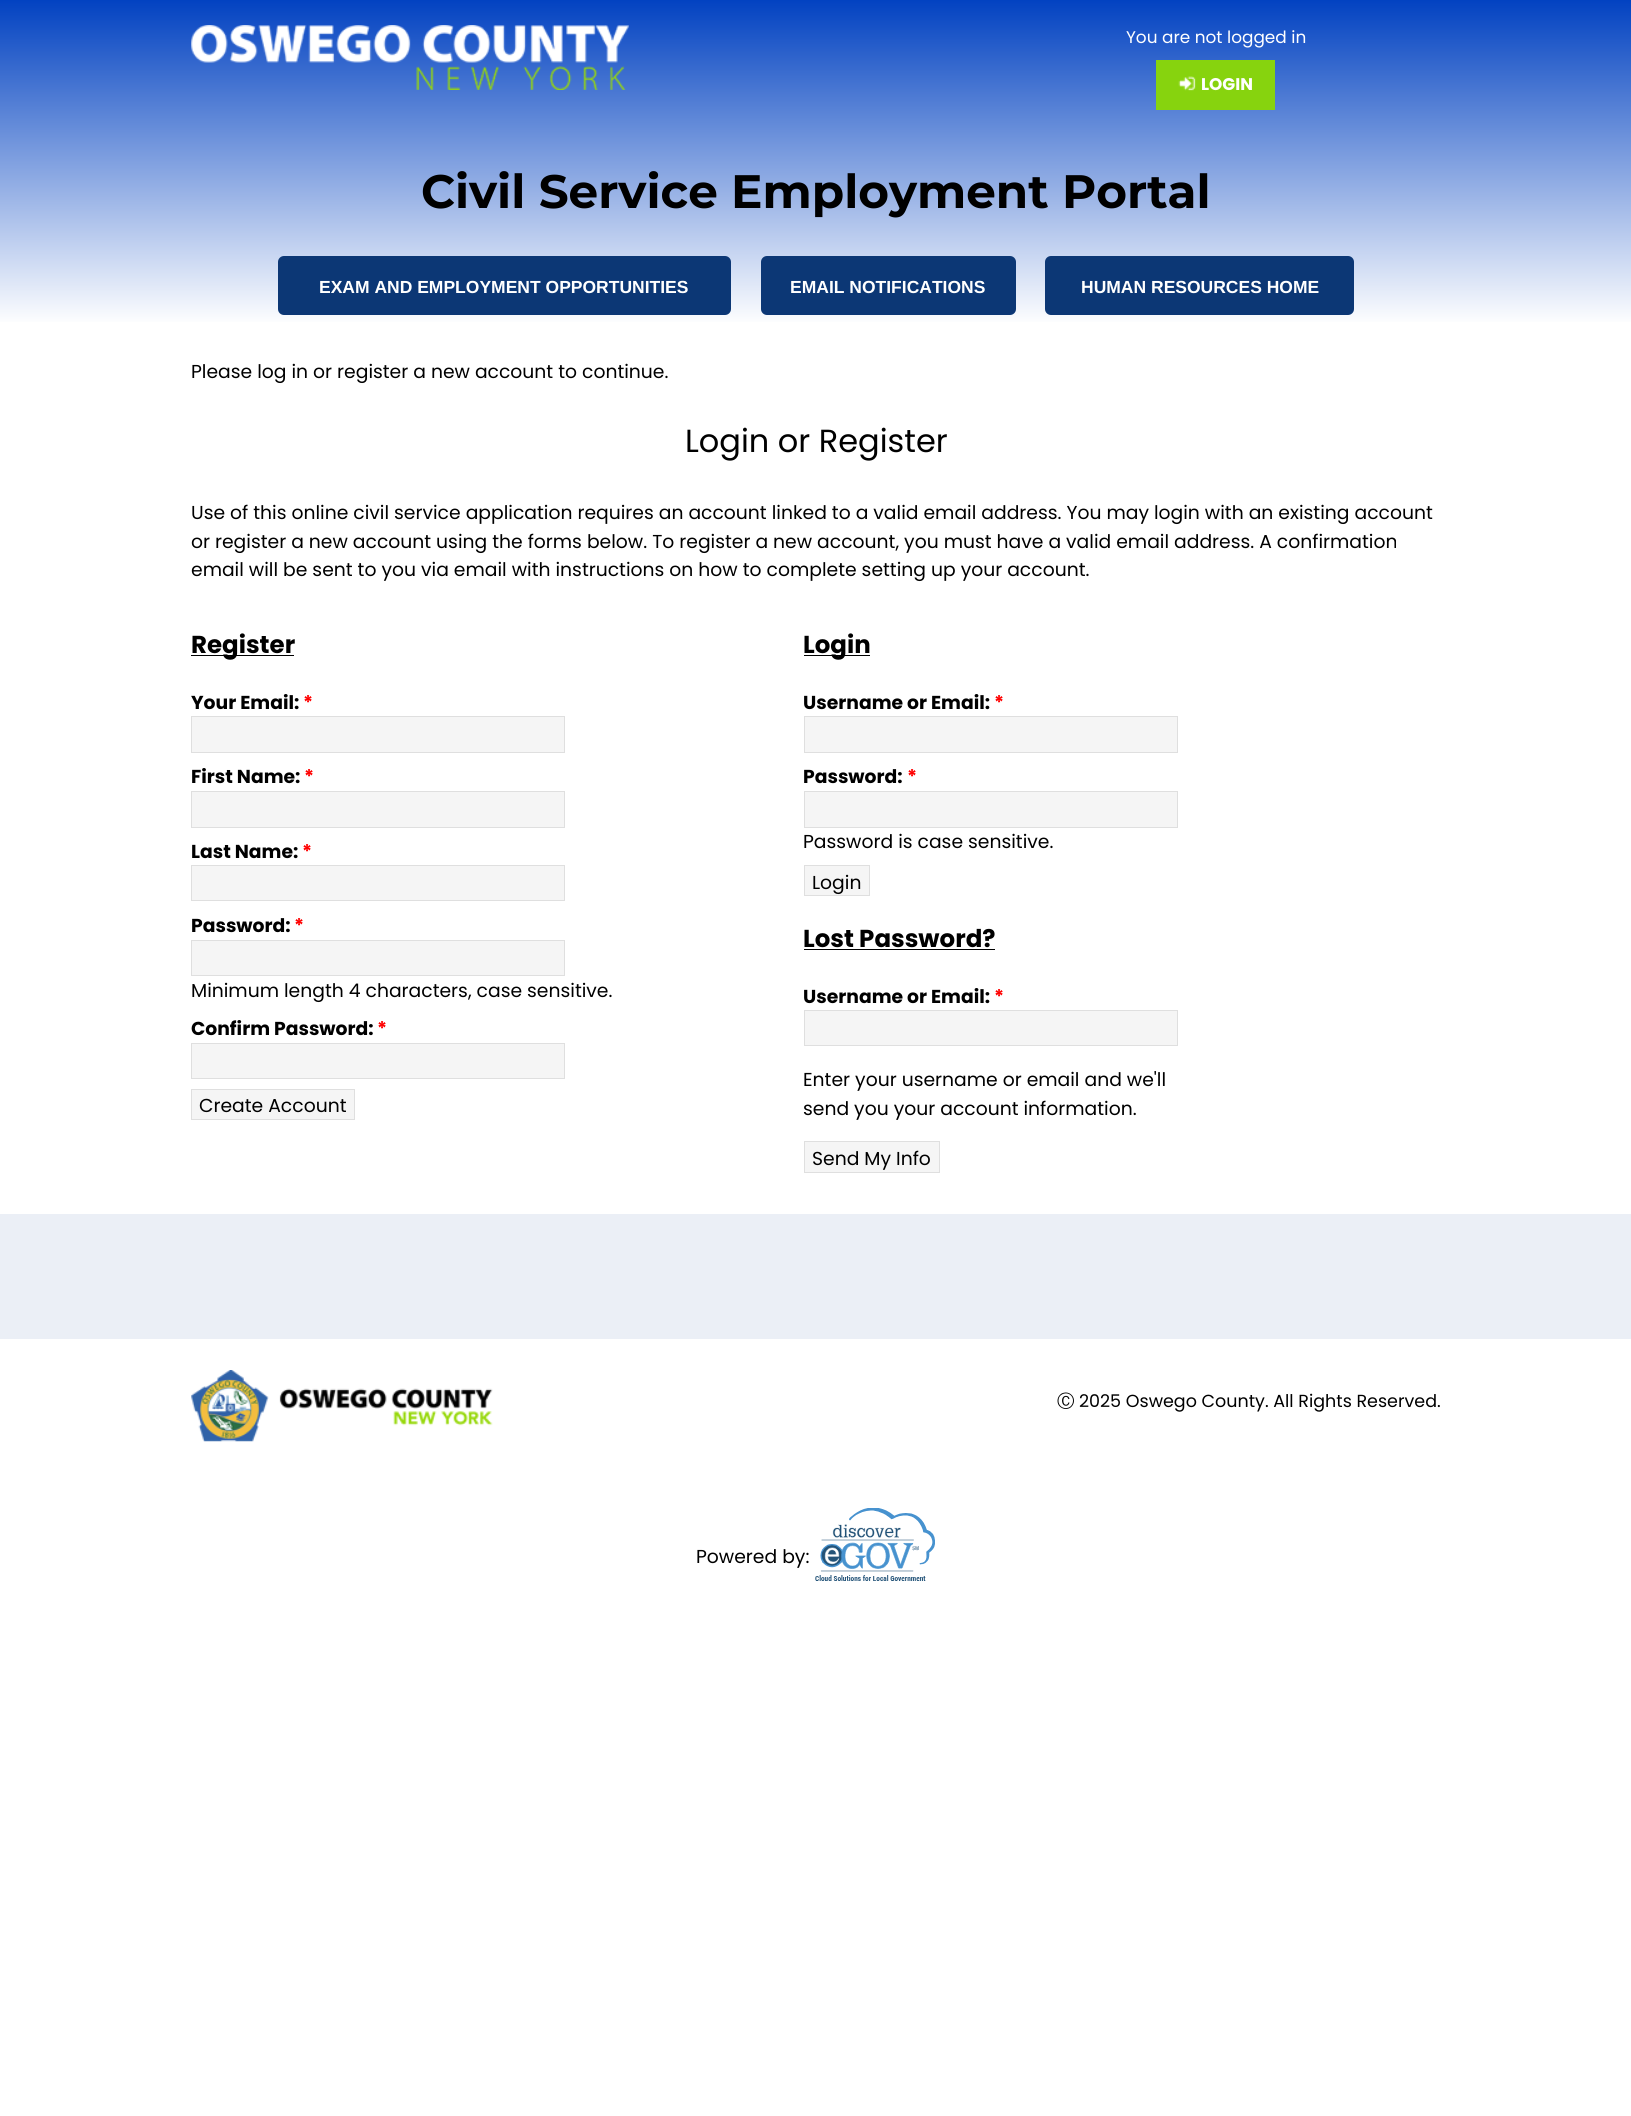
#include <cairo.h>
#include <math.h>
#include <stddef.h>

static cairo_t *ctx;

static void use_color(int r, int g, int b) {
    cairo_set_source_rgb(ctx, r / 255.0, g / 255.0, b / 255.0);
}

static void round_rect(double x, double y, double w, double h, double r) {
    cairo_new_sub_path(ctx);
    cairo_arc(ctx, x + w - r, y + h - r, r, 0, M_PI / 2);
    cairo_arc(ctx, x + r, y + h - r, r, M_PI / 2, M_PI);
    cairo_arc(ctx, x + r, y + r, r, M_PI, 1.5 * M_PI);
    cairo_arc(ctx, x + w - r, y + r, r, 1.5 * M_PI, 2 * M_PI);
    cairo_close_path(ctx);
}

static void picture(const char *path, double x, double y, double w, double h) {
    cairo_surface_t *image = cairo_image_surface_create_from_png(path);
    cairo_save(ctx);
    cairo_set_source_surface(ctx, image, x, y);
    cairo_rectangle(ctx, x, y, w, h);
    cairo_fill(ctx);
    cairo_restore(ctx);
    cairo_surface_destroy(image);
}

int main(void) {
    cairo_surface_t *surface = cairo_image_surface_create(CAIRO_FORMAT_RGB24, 1631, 2116);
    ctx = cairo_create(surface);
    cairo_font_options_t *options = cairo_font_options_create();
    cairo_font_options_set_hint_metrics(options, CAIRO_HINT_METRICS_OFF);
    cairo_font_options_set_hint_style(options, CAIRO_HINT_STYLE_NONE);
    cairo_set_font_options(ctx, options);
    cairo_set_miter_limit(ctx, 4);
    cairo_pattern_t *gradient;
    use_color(255, 255, 255);
    cairo_paint(ctx);
    gradient = cairo_pattern_create_linear(816, 0, 816, 325);
    cairo_pattern_add_color_stop_rgba(gradient, 0, 0.008, 0.259, 0.757, 1);
    cairo_pattern_add_color_stop_rgba(gradient, 1, 1, 1, 1, 1);
    cairo_set_source(ctx, gradient);
    cairo_pattern_destroy(gradient);
    cairo_rectangle(ctx, 0, 0, 1631, 322);
    cairo_fill(ctx);
    picture("img1.png", 191, 25, 438, 65);
    cairo_select_font_face(ctx, "Poppins", CAIRO_FONT_SLANT_NORMAL, CAIRO_FONT_WEIGHT_NORMAL);
    cairo_set_font_size(ctx, 16.9);
    use_color(255, 255, 255);
    cairo_move_to(ctx, 1126, 43);
    cairo_show_text(ctx, "You are not logged in");
    use_color(135, 211, 14);
    cairo_rectangle(ctx, 1156, 60, 119, 50);
    cairo_fill(ctx);
    picture("img2.png", 1178, 76, 18, 15);
    cairo_select_font_face(ctx, "Poppins", CAIRO_FONT_SLANT_NORMAL, CAIRO_FONT_WEIGHT_BOLD);
    use_color(255, 255, 255);
    cairo_move_to(ctx, 1201, 90);
    cairo_show_text(ctx, "LOGIN");
    cairo_select_font_face(ctx, "Montserrat", CAIRO_FONT_SLANT_NORMAL, CAIRO_FONT_WEIGHT_BOLD);
    cairo_set_font_size(ctx, 46.9);
    use_color(0, 0, 0);
    cairo_move_to(ctx, 421, 208);
    cairo_show_text(ctx, "Civil Service Employment Portal");
    use_color(12, 55, 117);
    round_rect(278, 256, 453, 59, 6);
    cairo_fill(ctx);
    cairo_select_font_face(ctx, "Liberation Sans", CAIRO_FONT_SLANT_NORMAL, CAIRO_FONT_WEIGHT_BOLD);
    cairo_set_font_size(ctx, 17.5);
    use_color(255, 255, 255);
    cairo_move_to(ctx, 319, 293);
    cairo_show_text(ctx, "EXAM AND EMPLOYMENT OPPORTUNITIES");
    use_color(12, 55, 117);
    round_rect(761, 256, 255, 59, 6);
    cairo_fill(ctx);
    use_color(255, 255, 255);
    cairo_move_to(ctx, 790, 293);
    cairo_show_text(ctx, "EMAIL NOTIFICATIONS");
    use_color(12, 55, 117);
    round_rect(1045, 256, 309, 59, 6);
    cairo_fill(ctx);
    use_color(255, 255, 255);
    cairo_move_to(ctx, 1081, 293);
    cairo_show_text(ctx, "HUMAN RESOURCES HOME");
    cairo_select_font_face(ctx, "Poppins", CAIRO_FONT_SLANT_NORMAL, CAIRO_FONT_WEIGHT_NORMAL);
    cairo_set_font_size(ctx, 18.75);
    use_color(0, 0, 0);
    cairo_move_to(ctx, 191, 378);
    cairo_show_text(ctx, "Please log in or register a new account to continue.");
    cairo_set_font_size(ctx, 32);
    cairo_move_to(ctx, 685, 452);
    cairo_show_text(ctx, "Login or Register");
    cairo_set_font_size(ctx, 18.75);
    cairo_move_to(ctx, 191, 519);
    cairo_show_text(ctx, "Use of this online civil service application requires an account linked to a valid email address. You may login with an existing account");
    cairo_move_to(ctx, 191, 548);
    cairo_show_text(ctx, "or register a new account using the forms below. To register a new account, you must have a valid email address. A confirmation");
    cairo_move_to(ctx, 191, 576);
    cairo_show_text(ctx, "email will be sent to you via email with instructions on how to complete setting up your account.");
    cairo_rectangle(ctx, 191, 655, 103, 1);
    cairo_fill(ctx);
    cairo_select_font_face(ctx, "Poppins", CAIRO_FONT_SLANT_NORMAL, CAIRO_FONT_WEIGHT_BOLD);
    cairo_set_font_size(ctx, 24.5);
    cairo_move_to(ctx, 191, 653);
    cairo_show_text(ctx, "Register");
    cairo_set_font_size(ctx, 18.75);
    cairo_move_to(ctx, 191, 709);
    cairo_show_text(ctx, "Your Email:");
    use_color(255, 0, 0);
    cairo_move_to(ctx, 303, 709);
    cairo_show_text(ctx, "*");
    use_color(245, 245, 245);
    cairo_rectangle(ctx, 191.5, 716.5, 373, 36);
    cairo_fill_preserve(ctx);
    use_color(223, 223, 223);
    cairo_set_line_width(ctx, 1);
    cairo_stroke(ctx);
    use_color(0, 0, 0);
    cairo_move_to(ctx, 191, 783);
    cairo_show_text(ctx, "First Name:");
    use_color(255, 0, 0);
    cairo_move_to(ctx, 304, 783);
    cairo_show_text(ctx, "*");
    use_color(245, 245, 245);
    cairo_rectangle(ctx, 191.5, 791.5, 373, 36);
    cairo_fill_preserve(ctx);
    use_color(223, 223, 223);
    cairo_stroke(ctx);
    use_color(0, 0, 0);
    cairo_move_to(ctx, 191, 858);
    cairo_show_text(ctx, "Last Name:");
    use_color(255, 0, 0);
    cairo_move_to(ctx, 302, 858);
    cairo_show_text(ctx, "*");
    use_color(245, 245, 245);
    cairo_rectangle(ctx, 191.5, 865.5, 373, 35);
    cairo_fill_preserve(ctx);
    use_color(223, 223, 223);
    cairo_stroke(ctx);
    use_color(0, 0, 0);
    cairo_move_to(ctx, 191, 932);
    cairo_show_text(ctx, "Password:");
    use_color(255, 0, 0);
    cairo_move_to(ctx, 294, 932);
    cairo_show_text(ctx, "*");
    use_color(245, 245, 245);
    cairo_rectangle(ctx, 191.5, 940.5, 373, 35);
    cairo_fill_preserve(ctx);
    use_color(223, 223, 223);
    cairo_stroke(ctx);
    cairo_select_font_face(ctx, "Poppins", CAIRO_FONT_SLANT_NORMAL, CAIRO_FONT_WEIGHT_NORMAL);
    use_color(0, 0, 0);
    cairo_move_to(ctx, 191, 997);
    cairo_show_text(ctx, "Minimum length 4 characters, case sensitive.");
    cairo_select_font_face(ctx, "Poppins", CAIRO_FONT_SLANT_NORMAL, CAIRO_FONT_WEIGHT_BOLD);
    cairo_move_to(ctx, 191, 1035);
    cairo_show_text(ctx, "Confirm Password:");
    use_color(255, 0, 0);
    cairo_move_to(ctx, 377, 1035);
    cairo_show_text(ctx, "*");
    use_color(245, 245, 245);
    cairo_rectangle(ctx, 191.5, 1043.5, 373, 35);
    cairo_fill_preserve(ctx);
    use_color(223, 223, 223);
    cairo_stroke(ctx);
    use_color(245, 245, 245);
    cairo_rectangle(ctx, 191.5, 1089.5, 163, 30);
    cairo_fill_preserve(ctx);
    use_color(223, 223, 223);
    cairo_stroke(ctx);
    cairo_select_font_face(ctx, "Poppins", CAIRO_FONT_SLANT_NORMAL, CAIRO_FONT_WEIGHT_NORMAL);
    use_color(0, 0, 0);
    cairo_move_to(ctx, 199, 1112);
    cairo_show_text(ctx, "Create Account");
    cairo_rectangle(ctx, 804, 655, 66, 1);
    cairo_fill(ctx);
    cairo_select_font_face(ctx, "Poppins", CAIRO_FONT_SLANT_NORMAL, CAIRO_FONT_WEIGHT_BOLD);
    cairo_set_font_size(ctx, 24.5);
    cairo_move_to(ctx, 803, 653);
    cairo_show_text(ctx, "Login");
    cairo_set_font_size(ctx, 18.75);
    cairo_move_to(ctx, 803, 709);
    cairo_show_text(ctx, "Username or Email:");
    use_color(255, 0, 0);
    cairo_move_to(ctx, 994, 709);
    cairo_show_text(ctx, "*");
    use_color(245, 245, 245);
    cairo_rectangle(ctx, 804.5, 716.5, 373, 36);
    cairo_fill_preserve(ctx);
    use_color(223, 223, 223);
    cairo_stroke(ctx);
    use_color(0, 0, 0);
    cairo_move_to(ctx, 803, 783);
    cairo_show_text(ctx, "Password:");
    use_color(255, 0, 0);
    cairo_move_to(ctx, 907, 783);
    cairo_show_text(ctx, "*");
    use_color(245, 245, 245);
    cairo_rectangle(ctx, 804.5, 791.5, 373, 36);
    cairo_fill_preserve(ctx);
    use_color(223, 223, 223);
    cairo_stroke(ctx);
    cairo_select_font_face(ctx, "Poppins", CAIRO_FONT_SLANT_NORMAL, CAIRO_FONT_WEIGHT_NORMAL);
    use_color(0, 0, 0);
    cairo_move_to(ctx, 803, 848);
    cairo_show_text(ctx, "Password is case sensitive.");
    use_color(245, 245, 245);
    cairo_rectangle(ctx, 804.5, 865.5, 65, 30);
    cairo_fill_preserve(ctx);
    use_color(223, 223, 223);
    cairo_stroke(ctx);
    use_color(0, 0, 0);
    cairo_move_to(ctx, 812, 889);
    cairo_show_text(ctx, "Login");
    cairo_select_font_face(ctx, "Poppins", CAIRO_FONT_SLANT_NORMAL, CAIRO_FONT_WEIGHT_BOLD);
    cairo_set_font_size(ctx, 24.5);
    cairo_move_to(ctx, 803, 947);
    cairo_show_text(ctx, "Lost Password?");
    cairo_rectangle(ctx, 804, 949, 191, 1);
    cairo_fill(ctx);
    cairo_set_font_size(ctx, 18.75);
    cairo_move_to(ctx, 803, 1003);
    cairo_show_text(ctx, "Username or Email:");
    use_color(255, 0, 0);
    cairo_move_to(ctx, 994, 1003);
    cairo_show_text(ctx, "*");
    use_color(245, 245, 245);
    cairo_rectangle(ctx, 804.5, 1010.5, 373, 35);
    cairo_fill_preserve(ctx);
    use_color(223, 223, 223);
    cairo_stroke(ctx);
    cairo_select_font_face(ctx, "Poppins", CAIRO_FONT_SLANT_NORMAL, CAIRO_FONT_WEIGHT_NORMAL);
    use_color(0, 0, 0);
    cairo_move_to(ctx, 803, 1086);
    cairo_show_text(ctx, "Enter your username or email and we'll");
    cairo_move_to(ctx, 803, 1115);
    cairo_show_text(ctx, "send you your account information.");
    use_color(245, 245, 245);
    cairo_rectangle(ctx, 804.5, 1141.5, 135, 31);
    cairo_fill_preserve(ctx);
    use_color(223, 223, 223);
    cairo_stroke(ctx);
    use_color(0, 0, 0);
    cairo_move_to(ctx, 812, 1165);
    cairo_show_text(ctx, "Send My Info");
    use_color(235, 239, 246);
    cairo_rectangle(ctx, 0, 1214, 1631, 125);
    cairo_fill(ctx);
    picture("img3.png", 191, 1370, 302, 72);
    cairo_select_font_face(ctx, "WenQuanYi Zen Hei Medium", CAIRO_FONT_SLANT_NORMAL, CAIRO_FONT_WEIGHT_NORMAL);
    cairo_set_font_size(ctx, 17.5);
    use_color(0, 0, 0);
    cairo_move_to(ctx, 1057, 1407);
    cairo_show_text(ctx, "Ⓒ");
    cairo_select_font_face(ctx, "Poppins", CAIRO_FONT_SLANT_NORMAL, CAIRO_FONT_WEIGHT_NORMAL);
    cairo_move_to(ctx, 1079, 1407);
    cairo_show_text(ctx, "2025 Oswego County. All Rights Reserved.");
    cairo_set_font_size(ctx, 18.75);
    cairo_move_to(ctx, 696, 1563);
    cairo_show_text(ctx, "Powered by:");
    picture("img4.png", 815, 1508, 120, 73);
    cairo_surface_write_to_png(surface, "result.png");
    cairo_font_options_destroy(options);
    cairo_destroy(ctx);
    cairo_surface_destroy(surface);
    return 0;
}
